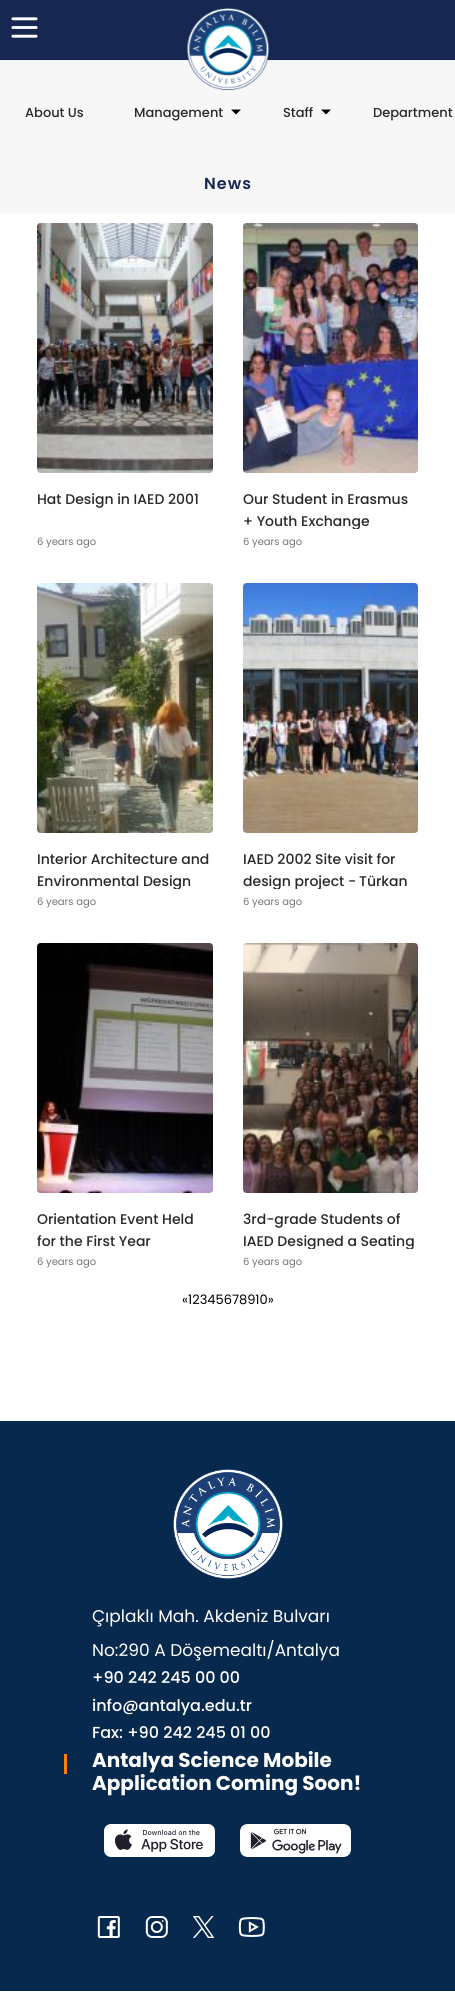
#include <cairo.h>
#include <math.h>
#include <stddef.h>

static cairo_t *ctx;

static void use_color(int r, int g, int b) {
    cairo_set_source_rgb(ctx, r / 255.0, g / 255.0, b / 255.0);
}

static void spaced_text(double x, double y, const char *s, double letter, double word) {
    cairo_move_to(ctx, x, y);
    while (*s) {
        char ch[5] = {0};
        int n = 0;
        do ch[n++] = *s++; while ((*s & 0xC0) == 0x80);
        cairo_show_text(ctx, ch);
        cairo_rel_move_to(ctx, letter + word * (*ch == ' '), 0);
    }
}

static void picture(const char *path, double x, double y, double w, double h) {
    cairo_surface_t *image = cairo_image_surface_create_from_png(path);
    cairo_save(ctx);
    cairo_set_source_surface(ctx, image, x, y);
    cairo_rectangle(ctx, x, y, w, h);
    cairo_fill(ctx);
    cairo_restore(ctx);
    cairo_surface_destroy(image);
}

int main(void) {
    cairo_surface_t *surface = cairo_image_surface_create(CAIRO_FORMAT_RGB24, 455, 2007);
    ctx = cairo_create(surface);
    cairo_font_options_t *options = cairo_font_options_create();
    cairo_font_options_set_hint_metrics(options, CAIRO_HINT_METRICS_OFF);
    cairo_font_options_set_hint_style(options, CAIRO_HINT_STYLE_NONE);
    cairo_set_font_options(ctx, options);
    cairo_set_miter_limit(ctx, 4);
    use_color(255, 255, 255);
    cairo_paint(ctx);
    use_color(238, 238, 238);
    cairo_rectangle(ctx, 0, 60, 455, 1);
    cairo_fill(ctx);
    use_color(23, 39, 81);
    cairo_rectangle(ctx, 0, 0, 455, 60);
    cairo_fill(ctx);
    picture("img1.png", 11, 17, 27, 21);
    use_color(247, 247, 247);
    cairo_rectangle(ctx, 0, 61, 455, 152);
    cairo_fill(ctx);
    picture("img2.png", 187, 8, 82, 82);
    cairo_select_font_face(ctx, "Poppins Medium", CAIRO_FONT_SLANT_NORMAL, CAIRO_FONT_WEIGHT_NORMAL);
    cairo_set_font_size(ctx, 13);
    use_color(41, 41, 41);
    cairo_move_to(ctx, 25, 117);
    cairo_show_text(ctx, "About Us");
    cairo_move_to(ctx, 134, 117);
    cairo_show_text(ctx, "Management");
    use_color(0, 0, 0);
    cairo_new_path(ctx);
    cairo_move_to(ctx, 231, 109.5);
    cairo_line_to(ctx, 241, 109.5);
    cairo_line_to(ctx, 236, 114.5);
    cairo_close_path(ctx);
    cairo_fill(ctx);
    use_color(41, 41, 41);
    cairo_move_to(ctx, 283, 117);
    cairo_show_text(ctx, "Staff");
    use_color(0, 0, 0);
    cairo_new_path(ctx);
    cairo_move_to(ctx, 321, 109.5);
    cairo_line_to(ctx, 331, 109.5);
    cairo_line_to(ctx, 326, 114.5);
    cairo_close_path(ctx);
    cairo_fill(ctx);
    use_color(41, 41, 41);
    cairo_move_to(ctx, 373, 117);
    cairo_show_text(ctx, "Department");
    cairo_select_font_face(ctx, "Poppins SemiBold", CAIRO_FONT_SLANT_NORMAL, CAIRO_FONT_WEIGHT_NORMAL);
    cairo_set_font_size(ctx, 16);
    use_color(23, 39, 81);
    spaced_text(204, 189, "News", 1, 0);
    picture("img3.png", 37, 223, 176, 250);
    cairo_select_font_face(ctx, "Poppins Medium", CAIRO_FONT_SLANT_NORMAL, CAIRO_FONT_WEIGHT_NORMAL);
    cairo_set_font_size(ctx, 14);
    use_color(41, 41, 41);
    cairo_move_to(ctx, 37, 504);
    cairo_show_text(ctx, "Hat Design in IAED 2001");
    cairo_select_font_face(ctx, "Poppins", CAIRO_FONT_SLANT_NORMAL, CAIRO_FONT_WEIGHT_NORMAL);
    cairo_set_font_size(ctx, 10);
    use_color(117, 117, 117);
    cairo_move_to(ctx, 37, 545);
    cairo_show_text(ctx, "6 years ago");
    picture("img4.png", 243, 223, 175, 250);
    cairo_select_font_face(ctx, "Poppins Medium", CAIRO_FONT_SLANT_NORMAL, CAIRO_FONT_WEIGHT_NORMAL);
    cairo_set_font_size(ctx, 14);
    use_color(41, 41, 41);
    cairo_move_to(ctx, 243, 504);
    cairo_show_text(ctx, "Our Student in Erasmus");
    cairo_save(ctx);
    cairo_rectangle(ctx, 243, 488, 175, 41);
    cairo_clip(ctx);
    cairo_move_to(ctx, 243, 526);
    cairo_show_text(ctx, "+ Youth Exchange");
    cairo_restore(ctx);
    cairo_select_font_face(ctx, "Poppins", CAIRO_FONT_SLANT_NORMAL, CAIRO_FONT_WEIGHT_NORMAL);
    cairo_set_font_size(ctx, 10);
    use_color(117, 117, 117);
    cairo_move_to(ctx, 243, 545);
    cairo_show_text(ctx, "6 years ago");
    picture("img5.png", 37, 583, 176, 250);
    cairo_select_font_face(ctx, "Poppins Medium", CAIRO_FONT_SLANT_NORMAL, CAIRO_FONT_WEIGHT_NORMAL);
    cairo_set_font_size(ctx, 14);
    use_color(41, 41, 41);
    cairo_move_to(ctx, 37, 864);
    cairo_show_text(ctx, "Interior Architecture and");
    cairo_save(ctx);
    cairo_rectangle(ctx, 37, 848, 176, 41);
    cairo_clip(ctx);
    cairo_move_to(ctx, 37, 886);
    cairo_show_text(ctx, "Environmental Design");
    cairo_restore(ctx);
    cairo_select_font_face(ctx, "Poppins", CAIRO_FONT_SLANT_NORMAL, CAIRO_FONT_WEIGHT_NORMAL);
    cairo_set_font_size(ctx, 10);
    use_color(117, 117, 117);
    cairo_move_to(ctx, 37, 905);
    cairo_show_text(ctx, "6 years ago");
    picture("img6.png", 243, 583, 175, 250);
    cairo_select_font_face(ctx, "Poppins Medium", CAIRO_FONT_SLANT_NORMAL, CAIRO_FONT_WEIGHT_NORMAL);
    cairo_set_font_size(ctx, 14);
    use_color(41, 41, 41);
    cairo_move_to(ctx, 243, 864);
    cairo_show_text(ctx, "IAED 2002 Site visit for");
    cairo_save(ctx);
    cairo_rectangle(ctx, 243, 848, 175, 41);
    cairo_clip(ctx);
    cairo_move_to(ctx, 243, 886);
    cairo_show_text(ctx, "design project -");
    cairo_restore(ctx);
    cairo_move_to(ctx, 359, 886);
    cairo_show_text(ctx, "Türkan");
    cairo_select_font_face(ctx, "Poppins", CAIRO_FONT_SLANT_NORMAL, CAIRO_FONT_WEIGHT_NORMAL);
    cairo_set_font_size(ctx, 10);
    use_color(117, 117, 117);
    cairo_move_to(ctx, 243, 905);
    cairo_show_text(ctx, "6 years ago");
    picture("img7.png", 37, 943, 176, 250);
    cairo_select_font_face(ctx, "Poppins Medium", CAIRO_FONT_SLANT_NORMAL, CAIRO_FONT_WEIGHT_NORMAL);
    cairo_set_font_size(ctx, 14);
    use_color(41, 41, 41);
    cairo_move_to(ctx, 37, 1224);
    cairo_show_text(ctx, "Orientation Event Held");
    cairo_move_to(ctx, 37, 1246);
    cairo_show_text(ctx, "for the First Year");
    cairo_select_font_face(ctx, "Poppins", CAIRO_FONT_SLANT_NORMAL, CAIRO_FONT_WEIGHT_NORMAL);
    cairo_set_font_size(ctx, 10);
    use_color(117, 117, 117);
    cairo_move_to(ctx, 37, 1265);
    cairo_show_text(ctx, "6 years ago");
    picture("img8.png", 243, 943, 175, 250);
    cairo_select_font_face(ctx, "Poppins Medium", CAIRO_FONT_SLANT_NORMAL, CAIRO_FONT_WEIGHT_NORMAL);
    cairo_set_font_size(ctx, 14);
    use_color(41, 41, 41);
    cairo_move_to(ctx, 243, 1224);
    cairo_show_text(ctx, "3rd-grade Students of");
    cairo_save(ctx);
    cairo_rectangle(ctx, 243, 1208, 175, 41);
    cairo_clip(ctx);
    cairo_move_to(ctx, 243, 1246);
    cairo_show_text(ctx, "IAED Designed a Seating");
    cairo_restore(ctx);
    cairo_select_font_face(ctx, "Poppins", CAIRO_FONT_SLANT_NORMAL, CAIRO_FONT_WEIGHT_NORMAL);
    cairo_set_font_size(ctx, 10);
    use_color(117, 117, 117);
    cairo_move_to(ctx, 243, 1265);
    cairo_show_text(ctx, "6 years ago");
    cairo_set_font_size(ctx, 13);
    use_color(0, 0, 0);
    cairo_move_to(ctx, 182, 1304);
    cairo_show_text(ctx, "«12345678910»");
    use_color(8, 41, 78);
    cairo_rectangle(ctx, 0, 1421, 455, 570);
    cairo_fill(ctx);
    picture("img9.png", 173, 1469, 110, 110);
    cairo_set_font_size(ctx, 17);
    use_color(255, 255, 255);
    cairo_move_to(ctx, 92, 1622);
    cairo_show_text(ctx, "Çıplaklı Mah. Akdeniz Bulvarı");
    cairo_move_to(ctx, 92, 1656);
    cairo_show_text(ctx, "No:290 A Döşemealtı/Antalya");
    cairo_select_font_face(ctx, "Poppins Medium", CAIRO_FONT_SLANT_NORMAL, CAIRO_FONT_WEIGHT_NORMAL);
    cairo_set_font_size(ctx, 16);
    cairo_move_to(ctx, 92, 1683);
    cairo_show_text(ctx, "+90 242 245 00 00");
    cairo_move_to(ctx, 92, 1711);
    cairo_show_text(ctx, "info@antalya.edu.tr");
    cairo_move_to(ctx, 92, 1738);
    cairo_show_text(ctx, "Fax: +90 242 245 01 00");
    use_color(255, 127, 0);
    cairo_rectangle(ctx, 64, 1754, 3, 20);
    cairo_fill(ctx);
    cairo_select_font_face(ctx, "Poppins", CAIRO_FONT_SLANT_NORMAL, CAIRO_FONT_WEIGHT_BOLD);
    cairo_set_font_size(ctx, 20);
    use_color(255, 255, 255);
    cairo_move_to(ctx, 92, 1767);
    cairo_show_text(ctx, "Antalya Science Mobile");
    cairo_move_to(ctx, 92, 1790);
    cairo_show_text(ctx, "Application Coming Soon!");
    picture("img10.png", 104, 1824, 111, 33);
    picture("img11.png", 240, 1824, 111, 33);
    picture("img12.png", 97, 1916, 23, 22);
    picture("img13.png", 145, 1916, 23, 22);
    picture("img14.png", 193, 1916, 22, 22);
    picture("img15.png", 238, 1917, 27, 20);
    cairo_surface_write_to_png(surface, "result.png");
    cairo_font_options_destroy(options);
    cairo_destroy(ctx);
    cairo_surface_destroy(surface);
    return 0;
}
